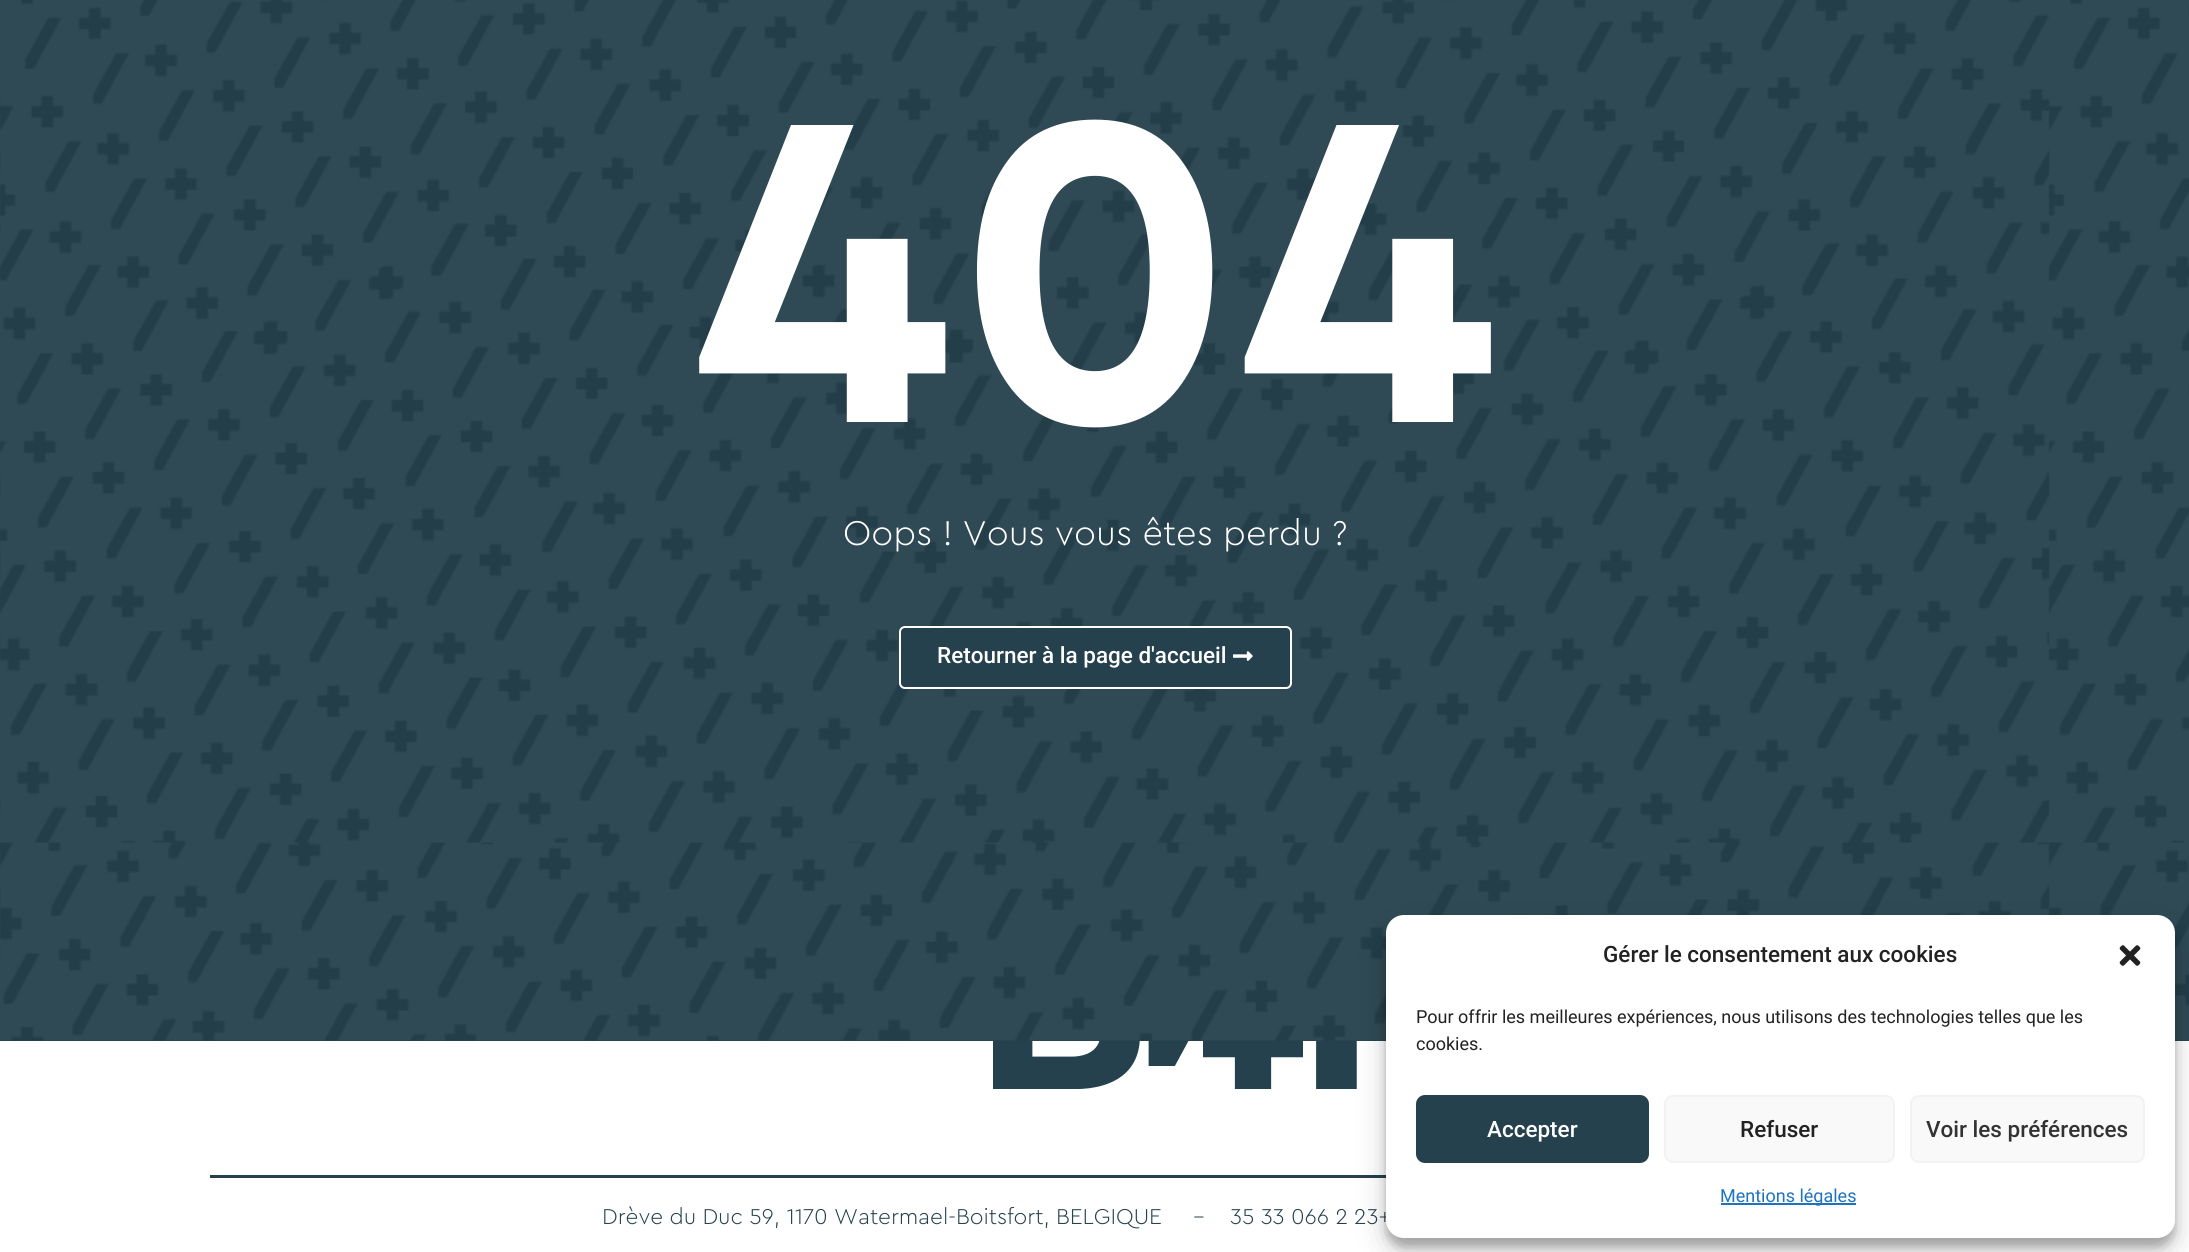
#include <cairo.h>
#include <math.h>
#include <stddef.h>

static cairo_t *ctx;

static void use_color(int r, int g, int b) {
    cairo_set_source_rgb(ctx, r / 255.0, g / 255.0, b / 255.0);
}

static void round_rect(double x, double y, double w, double h, double r) {
    cairo_new_sub_path(ctx);
    cairo_arc(ctx, x + w - r, y + h - r, r, 0, M_PI / 2);
    cairo_arc(ctx, x + r, y + h - r, r, M_PI / 2, M_PI);
    cairo_arc(ctx, x + r, y + r, r, M_PI, 1.5 * M_PI);
    cairo_arc(ctx, x + w - r, y + r, r, 1.5 * M_PI, 2 * M_PI);
    cairo_close_path(ctx);
}

static void shadow(double x, double y, double w, double h, double r, double blur, double alpha) {
    cairo_push_group_with_content(ctx, CAIRO_CONTENT_ALPHA);
    cairo_set_operator(ctx, CAIRO_OPERATOR_SOURCE);
    for (int i = 15; i >= -15 && fmin(w, h) + blur * i / 3 > 0; i -= 2) {
        double e = blur * i / 6;
        cairo_set_source_rgba(ctx, 0, 0, 0, alpha * erfc((i - 1) / 8.5) / 2);
        round_rect(x - e, y - e, w + 2 * e, h + 2 * e, fmax(0, fmin(r + e + blur * .6, fmin(w, h) / 2 + e)));
        cairo_fill(ctx);
    }
    cairo_pattern_t *soft = cairo_pop_group(ctx);
    cairo_mask(ctx, soft);
    cairo_pattern_destroy(soft);
}

static void picture(const char *path, double x, double y, double w, double h) {
    cairo_surface_t *image = cairo_image_surface_create_from_png(path);
    cairo_save(ctx);
    cairo_set_source_surface(ctx, image, x, y);
    cairo_rectangle(ctx, x, y, w, h);
    cairo_fill(ctx);
    cairo_restore(ctx);
    cairo_surface_destroy(image);
}

int main(void) {
    cairo_surface_t *surface = cairo_image_surface_create(CAIRO_FORMAT_RGB24, 2189, 1252);
    ctx = cairo_create(surface);
    cairo_font_options_t *options = cairo_font_options_create();
    cairo_font_options_set_hint_metrics(options, CAIRO_HINT_METRICS_OFF);
    cairo_font_options_set_hint_style(options, CAIRO_HINT_STYLE_NONE);
    cairo_set_font_options(ctx, options);
    cairo_set_miter_limit(ctx, 4);
    use_color(255, 255, 255);
    cairo_paint(ctx);
    use_color(37, 65, 77);
    cairo_rectangle(ctx, 0, 0, 2189, 1041);
    cairo_fill(ctx);
    picture("img1.png", 0, 0, 2189, 1041);
    cairo_select_font_face(ctx, "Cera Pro", CAIRO_FONT_SLANT_NORMAL, CAIRO_FONT_WEIGHT_BOLD);
    cairo_set_font_size(ctx, 450);
    use_color(255, 255, 255);
    cairo_move_to(ctx, 692, 422);
    cairo_show_text(ctx, "404");
    cairo_select_font_face(ctx, "Cera Pro Light", CAIRO_FONT_SLANT_NORMAL, CAIRO_FONT_WEIGHT_NORMAL);
    cairo_set_font_size(ctx, 36);
    cairo_move_to(ctx, 843, 545);
    cairo_show_text(ctx, "Oops ! Vous vous êtes perdu ?");
    use_color(37, 65, 77);
    round_rect(900, 627, 391, 61, 5);
    cairo_fill_preserve(ctx);
    use_color(255, 255, 255);
    cairo_stroke(ctx);
    cairo_select_font_face(ctx, "Roboto Medium", CAIRO_FONT_SLANT_NORMAL, CAIRO_FONT_WEIGHT_NORMAL);
    cairo_set_font_size(ctx, 22.5);
    cairo_move_to(ctx, 937, 663);
    cairo_show_text(ctx, "Retourner à la page d'accueil");
    picture("img2.png", 1233, 651, 20, 10);
    picture("img3.png", 993, 1041, 364, 48);
    use_color(37, 65, 77);
    cairo_rectangle(ctx, 210, 1175, 1176, 3);
    cairo_fill(ctx);
    cairo_select_font_face(ctx, "Cera Pro Light", CAIRO_FONT_SLANT_NORMAL, CAIRO_FONT_WEIGHT_NORMAL);
    cairo_move_to(ctx, 602, 1224);
    cairo_show_text(ctx, "Drève du Duc 59, 1170 Watermael-Boitsfort, BELGIQUE     –");
    cairo_move_to(ctx, 1230, 1224);
    cairo_show_text(ctx, "35 33 066 2 23+");
    use_color(0, 0, 0);
    shadow(1386, 924, 789, 323, 18, 4.5, 0.23);
    shadow(1386, 930, 789, 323, 18, 15, 0.19);
    use_color(255, 255, 255);
    round_rect(1386, 915, 789, 323, 18);
    cairo_fill(ctx);
    cairo_select_font_face(ctx, "Roboto Medium", CAIRO_FONT_SLANT_NORMAL, CAIRO_FONT_WEIGHT_NORMAL);
    use_color(34, 34, 34);
    cairo_move_to(ctx, 1603, 962);
    cairo_show_text(ctx, "Gérer le consentement aux cookies");
    picture("img4.png", 2119, 945, 22, 21);
    cairo_select_font_face(ctx, "Roboto", CAIRO_FONT_SLANT_NORMAL, CAIRO_FONT_WEIGHT_NORMAL);
    cairo_set_font_size(ctx, 18);
    cairo_move_to(ctx, 1416, 1023);
    cairo_show_text(ctx, "Pour offrir les meilleures expériences, nous utilisons des technologies telles que les");
    cairo_move_to(ctx, 1416, 1050);
    cairo_show_text(ctx, "cookies.");
    use_color(37, 65, 77);
    round_rect(1417, 1096, 231, 66, 8);
    cairo_fill_preserve(ctx);
    cairo_stroke(ctx);
    cairo_select_font_face(ctx, "Roboto Medium", CAIRO_FONT_SLANT_NORMAL, CAIRO_FONT_WEIGHT_NORMAL);
    cairo_set_font_size(ctx, 22.5);
    use_color(255, 255, 255);
    cairo_move_to(ctx, 1487, 1137);
    cairo_show_text(ctx, "Accepter");
    use_color(249, 249, 249);
    round_rect(1665, 1096, 229, 66, 8);
    cairo_fill_preserve(ctx);
    use_color(242, 242, 242);
    cairo_stroke(ctx);
    use_color(34, 34, 34);
    cairo_move_to(ctx, 1740, 1137);
    cairo_show_text(ctx, "Refuser");
    use_color(249, 249, 249);
    round_rect(1911, 1096, 233, 66, 8);
    cairo_fill_preserve(ctx);
    use_color(242, 242, 242);
    cairo_stroke(ctx);
    use_color(51, 51, 51);
    cairo_move_to(ctx, 1926, 1137);
    cairo_show_text(ctx, "Voir les préférences");
    use_color(30, 115, 190);
    cairo_rectangle(ctx, 1721, 1203, 135, 2);
    cairo_fill(ctx);
    cairo_select_font_face(ctx, "Roboto", CAIRO_FONT_SLANT_NORMAL, CAIRO_FONT_WEIGHT_NORMAL);
    cairo_set_font_size(ctx, 18);
    cairo_move_to(ctx, 1720, 1202);
    cairo_show_text(ctx, "Mentions légales");
    cairo_surface_write_to_png(surface, "result.png");
    cairo_font_options_destroy(options);
    cairo_destroy(ctx);
    cairo_surface_destroy(surface);
    return 0;
}
